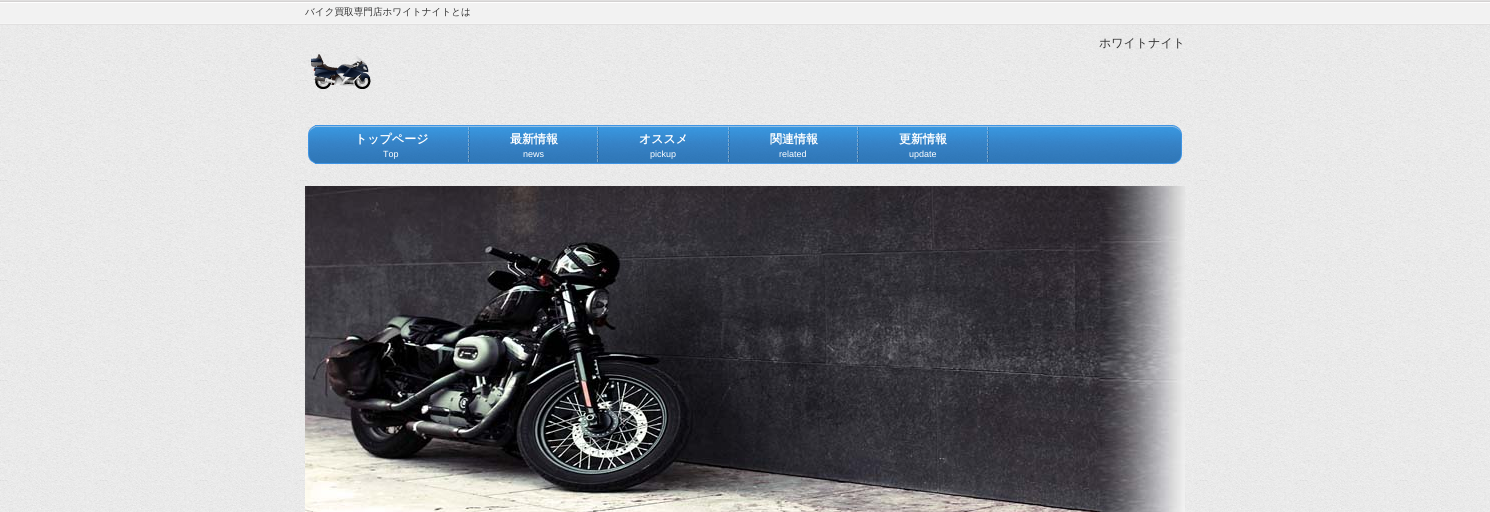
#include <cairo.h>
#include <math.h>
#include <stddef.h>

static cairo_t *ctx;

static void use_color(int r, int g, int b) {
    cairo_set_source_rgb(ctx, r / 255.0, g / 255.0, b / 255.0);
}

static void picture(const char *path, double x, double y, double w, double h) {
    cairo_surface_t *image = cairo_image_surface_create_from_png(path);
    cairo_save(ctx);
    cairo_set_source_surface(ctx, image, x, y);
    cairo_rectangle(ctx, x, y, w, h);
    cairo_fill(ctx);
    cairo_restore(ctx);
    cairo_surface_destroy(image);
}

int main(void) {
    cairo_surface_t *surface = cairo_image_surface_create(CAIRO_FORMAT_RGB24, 1490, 512);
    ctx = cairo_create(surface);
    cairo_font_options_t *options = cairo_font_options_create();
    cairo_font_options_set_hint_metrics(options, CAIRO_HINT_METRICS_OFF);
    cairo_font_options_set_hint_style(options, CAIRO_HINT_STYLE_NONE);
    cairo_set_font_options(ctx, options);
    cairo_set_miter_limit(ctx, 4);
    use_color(255, 255, 255);
    cairo_paint(ctx);
    picture("img1.png", 0, 25, 1490, 487);
    picture("img2.png", 0, 0, 1490, 25);
    cairo_select_font_face(ctx, "WenQuanYi Zen Hei Medium", CAIRO_FONT_SLANT_NORMAL, CAIRO_FONT_WEIGHT_NORMAL);
    cairo_set_font_size(ctx, 9.6);
    use_color(51, 51, 51);
    cairo_move_to(ctx, 305, 15);
    cairo_show_text(ctx, "バイク買取専門店ホワイトナイトとは");
    cairo_set_font_size(ctx, 12);
    cairo_move_to(ctx, 1099, 47);
    cairo_show_text(ctx, "ホワイトナイト");
    picture("img3.png", 311, 54, 60, 35);
    picture("img4.png", 305, 121, 880, 45);
    picture("img5.png", 468, 127, 2, 35);
    picture("img6.png", 315, 121, 153, 45);
    cairo_select_font_face(ctx, "WenQuanYi Zen Hei", CAIRO_FONT_SLANT_NORMAL, CAIRO_FONT_WEIGHT_BOLD);
    use_color(255, 255, 255);
    cairo_move_to(ctx, 355, 143);
    cairo_show_text(ctx, "トップページ");
    cairo_select_font_face(ctx, "Liberation Sans", CAIRO_FONT_SLANT_NORMAL, CAIRO_FONT_WEIGHT_NORMAL);
    cairo_set_font_size(ctx, 9);
    cairo_move_to(ctx, 383, 157);
    cairo_show_text(ctx, "Top");
    picture("img5.png", 597, 127, 2, 35);
    picture("img7.png", 470, 121, 127, 45);
    cairo_select_font_face(ctx, "WenQuanYi Zen Hei", CAIRO_FONT_SLANT_NORMAL, CAIRO_FONT_WEIGHT_BOLD);
    cairo_set_font_size(ctx, 12);
    cairo_move_to(ctx, 510, 143);
    cairo_show_text(ctx, "最新情報");
    cairo_select_font_face(ctx, "Liberation Sans", CAIRO_FONT_SLANT_NORMAL, CAIRO_FONT_WEIGHT_NORMAL);
    cairo_set_font_size(ctx, 9);
    cairo_move_to(ctx, 523, 157);
    cairo_show_text(ctx, "news");
    picture("img5.png", 728, 127, 2, 35);
    picture("img8.png", 600, 121, 128, 45);
    cairo_select_font_face(ctx, "WenQuanYi Zen Hei", CAIRO_FONT_SLANT_NORMAL, CAIRO_FONT_WEIGHT_BOLD);
    cairo_set_font_size(ctx, 12);
    cairo_move_to(ctx, 639, 143);
    cairo_show_text(ctx, "オススメ");
    cairo_select_font_face(ctx, "Liberation Sans", CAIRO_FONT_SLANT_NORMAL, CAIRO_FONT_WEIGHT_NORMAL);
    cairo_set_font_size(ctx, 9);
    cairo_move_to(ctx, 650, 157);
    cairo_show_text(ctx, "pickup");
    picture("img5.png", 857, 127, 2, 35);
    picture("img7.png", 730, 121, 127, 45);
    cairo_select_font_face(ctx, "WenQuanYi Zen Hei", CAIRO_FONT_SLANT_NORMAL, CAIRO_FONT_WEIGHT_BOLD);
    cairo_set_font_size(ctx, 12);
    cairo_move_to(ctx, 770, 143);
    cairo_show_text(ctx, "関連情報");
    cairo_select_font_face(ctx, "Liberation Sans", CAIRO_FONT_SLANT_NORMAL, CAIRO_FONT_WEIGHT_NORMAL);
    cairo_set_font_size(ctx, 9);
    cairo_move_to(ctx, 779, 157);
    cairo_show_text(ctx, "related");
    picture("img5.png", 987, 127, 2, 35);
    picture("img9.png", 859, 121, 128, 45);
    cairo_select_font_face(ctx, "WenQuanYi Zen Hei", CAIRO_FONT_SLANT_NORMAL, CAIRO_FONT_WEIGHT_BOLD);
    cairo_set_font_size(ctx, 12);
    cairo_move_to(ctx, 899, 143);
    cairo_show_text(ctx, "更新情報");
    cairo_select_font_face(ctx, "Liberation Sans", CAIRO_FONT_SLANT_NORMAL, CAIRO_FONT_WEIGHT_NORMAL);
    cairo_set_font_size(ctx, 9);
    cairo_move_to(ctx, 909, 157);
    cairo_show_text(ctx, "update");
    picture("img10.png", 305, 186, 880, 326);
    cairo_surface_write_to_png(surface, "result.png");
    cairo_font_options_destroy(options);
    cairo_destroy(ctx);
    cairo_surface_destroy(surface);
    return 0;
}
